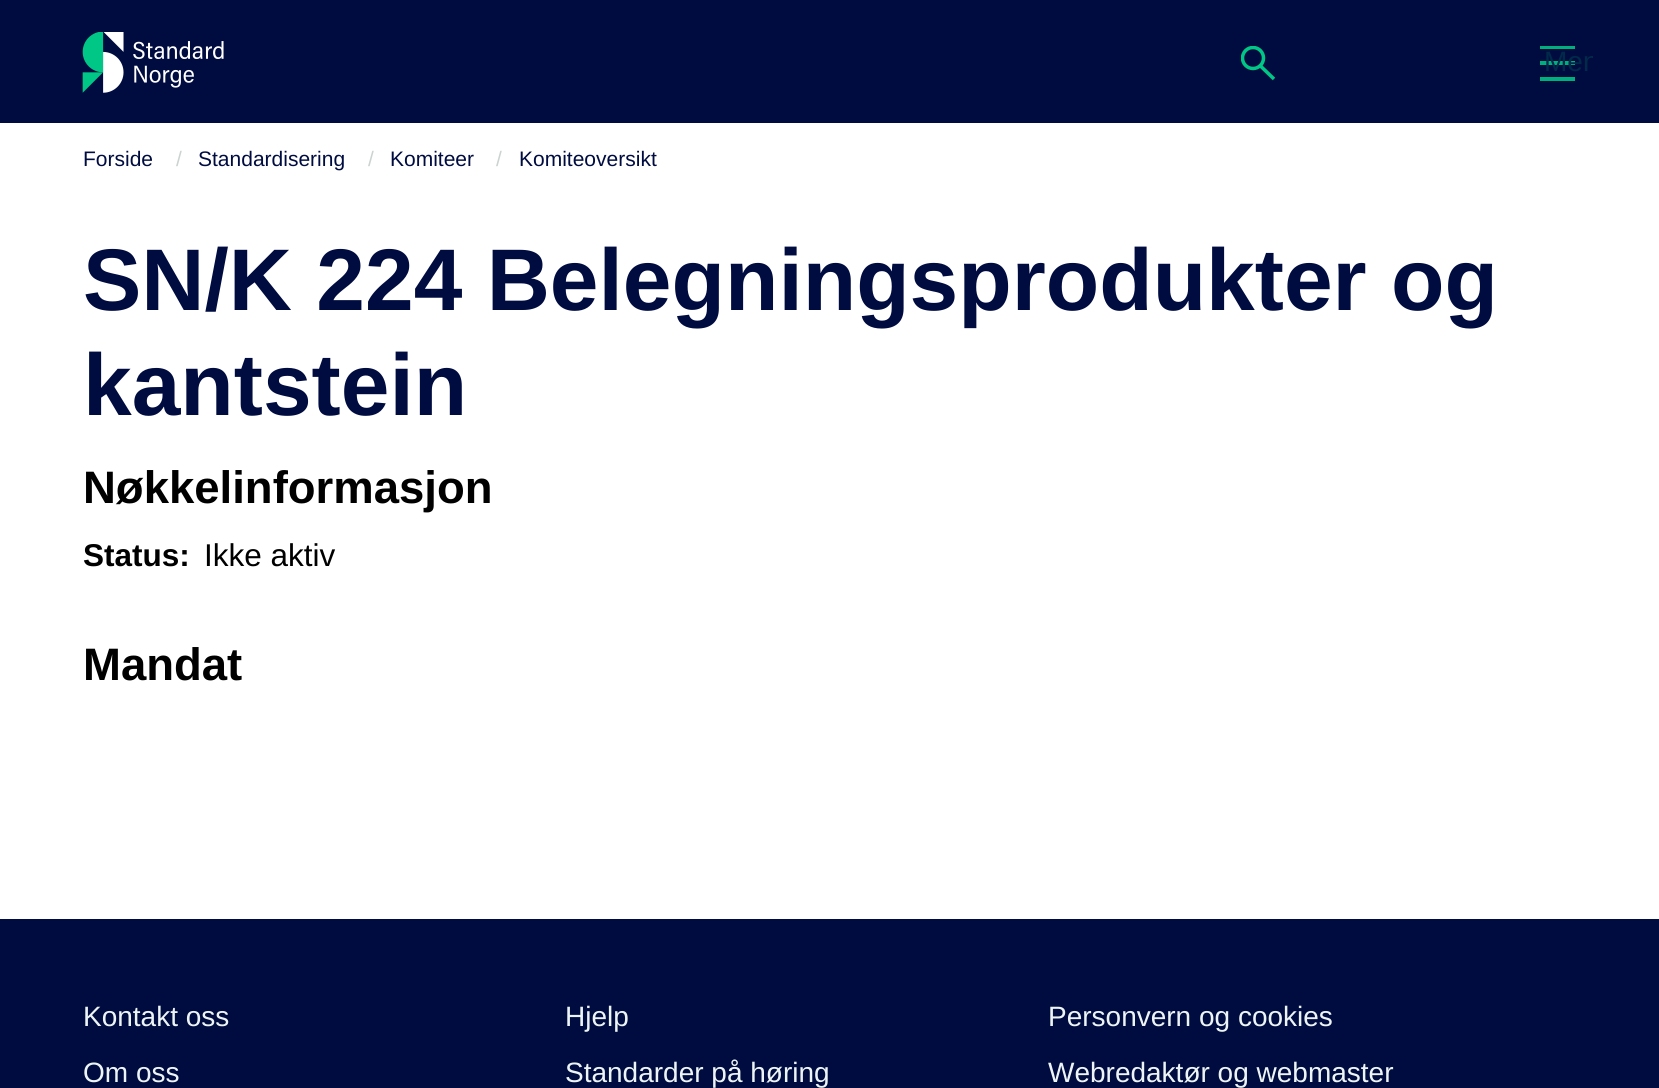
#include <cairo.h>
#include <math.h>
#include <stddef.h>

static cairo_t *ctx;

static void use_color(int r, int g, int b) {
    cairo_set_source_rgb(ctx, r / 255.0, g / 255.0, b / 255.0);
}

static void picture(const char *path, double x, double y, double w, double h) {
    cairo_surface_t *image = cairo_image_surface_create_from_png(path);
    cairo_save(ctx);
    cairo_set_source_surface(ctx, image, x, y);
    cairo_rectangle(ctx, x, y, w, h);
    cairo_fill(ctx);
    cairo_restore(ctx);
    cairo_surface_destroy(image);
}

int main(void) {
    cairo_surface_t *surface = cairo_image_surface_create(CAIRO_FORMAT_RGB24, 1659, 1088);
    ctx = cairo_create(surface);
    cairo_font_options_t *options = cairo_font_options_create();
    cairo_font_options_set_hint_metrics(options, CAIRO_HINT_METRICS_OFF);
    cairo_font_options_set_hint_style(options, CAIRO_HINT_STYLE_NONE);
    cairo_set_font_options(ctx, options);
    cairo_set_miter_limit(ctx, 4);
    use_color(255, 255, 255);
    cairo_paint(ctx);
    use_color(0, 12, 64);
    cairo_rectangle(ctx, 0, 0, 1659, 123);
    cairo_fill(ctx);
    cairo_save(ctx);
    cairo_rectangle(ctx, 1241, 46, 35, 35);
    cairo_clip(ctx);
    cairo_arc(ctx, 1253, 58, 10.5, 0, 2 * M_PI);
    use_color(0, 199, 133);
    cairo_set_line_width(ctx, 3.5);
    cairo_stroke(ctx);
    cairo_restore(ctx);
    cairo_new_path(ctx);
    cairo_move_to(ctx, 1260.5, 66);
    cairo_line_to(ctx, 1274, 79);
    use_color(0, 199, 133);
    cairo_set_line_width(ctx, 3.5);
    cairo_stroke(ctx);
    picture("img1.png", 82, 32, 142, 61);
    use_color(0, 176, 124);
    cairo_rectangle(ctx, 1540, 46, 35, 3);
    cairo_fill(ctx);
    cairo_rectangle(ctx, 1540, 61, 35, 4);
    cairo_fill(ctx);
    cairo_rectangle(ctx, 1540, 77, 35, 4);
    cairo_fill(ctx);
    cairo_save(ctx);
    cairo_rectangle(ctx, 1523, 26, 70, 74);
    cairo_clip(ctx);
    cairo_select_font_face(ctx, "Liberation Sans", CAIRO_FONT_SLANT_NORMAL, CAIRO_FONT_WEIGHT_NORMAL);
    cairo_set_font_size(ctx, 28);
    use_color(0, 41, 74);
    cairo_move_to(ctx, 1544, 71);
    cairo_show_text(ctx, "Men");
    cairo_restore(ctx);
    cairo_select_font_face(ctx, "Liberation Sans", CAIRO_FONT_SLANT_NORMAL, CAIRO_FONT_WEIGHT_NORMAL);
    cairo_set_font_size(ctx, 21);
    use_color(0, 12, 64);
    cairo_move_to(ctx, 83, 166);
    cairo_show_text(ctx, "Forside");
    use_color(204, 211, 210);
    cairo_move_to(ctx, 176, 166);
    cairo_show_text(ctx, "/");
    use_color(0, 12, 64);
    cairo_move_to(ctx, 198, 166);
    cairo_show_text(ctx, "Standardisering");
    use_color(204, 211, 210);
    cairo_move_to(ctx, 368, 166);
    cairo_show_text(ctx, "/");
    use_color(0, 12, 64);
    cairo_move_to(ctx, 390, 166);
    cairo_show_text(ctx, "Komiteer");
    use_color(204, 211, 210);
    cairo_move_to(ctx, 496, 166);
    cairo_show_text(ctx, "/");
    use_color(0, 12, 64);
    cairo_move_to(ctx, 519, 166);
    cairo_show_text(ctx, "Komiteoversikt");
    cairo_select_font_face(ctx, "Liberation Sans", CAIRO_FONT_SLANT_NORMAL, CAIRO_FONT_WEIGHT_BOLD);
    cairo_set_font_size(ctx, 87.5);
    cairo_move_to(ctx, 83, 310);
    cairo_show_text(ctx, "SN/K 224 Belegningsprodukter og");
    cairo_move_to(ctx, 83, 415);
    cairo_show_text(ctx, "kantstein");
    cairo_set_font_size(ctx, 45.5);
    use_color(0, 0, 0);
    cairo_move_to(ctx, 83, 503);
    cairo_show_text(ctx, "Nøkkelinformasjon");
    cairo_set_font_size(ctx, 31.5);
    cairo_move_to(ctx, 83, 566);
    cairo_show_text(ctx, "Status:");
    cairo_select_font_face(ctx, "Liberation Sans", CAIRO_FONT_SLANT_NORMAL, CAIRO_FONT_WEIGHT_NORMAL);
    cairo_move_to(ctx, 204, 566);
    cairo_show_text(ctx, "Ikke aktiv");
    cairo_select_font_face(ctx, "Liberation Sans", CAIRO_FONT_SLANT_NORMAL, CAIRO_FONT_WEIGHT_BOLD);
    cairo_set_font_size(ctx, 45.5);
    cairo_move_to(ctx, 83, 680);
    cairo_show_text(ctx, "Mandat");
    use_color(0, 12, 64);
    cairo_rectangle(ctx, 0, 919, 1659, 169);
    cairo_fill(ctx);
    cairo_select_font_face(ctx, "Liberation Sans", CAIRO_FONT_SLANT_NORMAL, CAIRO_FONT_WEIGHT_NORMAL);
    cairo_set_font_size(ctx, 28);
    use_color(237, 245, 244);
    cairo_move_to(ctx, 83, 1026);
    cairo_show_text(ctx, "Kontakt oss");
    cairo_move_to(ctx, 565, 1026);
    cairo_show_text(ctx, "Hjelp");
    cairo_move_to(ctx, 1048, 1026);
    cairo_show_text(ctx, "Personvern og cookies");
    cairo_move_to(ctx, 83, 1082);
    cairo_show_text(ctx, "Om oss");
    cairo_move_to(ctx, 565, 1082);
    cairo_show_text(ctx, "Standarder på høring");
    cairo_move_to(ctx, 1048, 1082);
    cairo_show_text(ctx, "Webredaktør og webmaster");
    cairo_surface_write_to_png(surface, "result.png");
    cairo_font_options_destroy(options);
    cairo_destroy(ctx);
    cairo_surface_destroy(surface);
    return 0;
}
